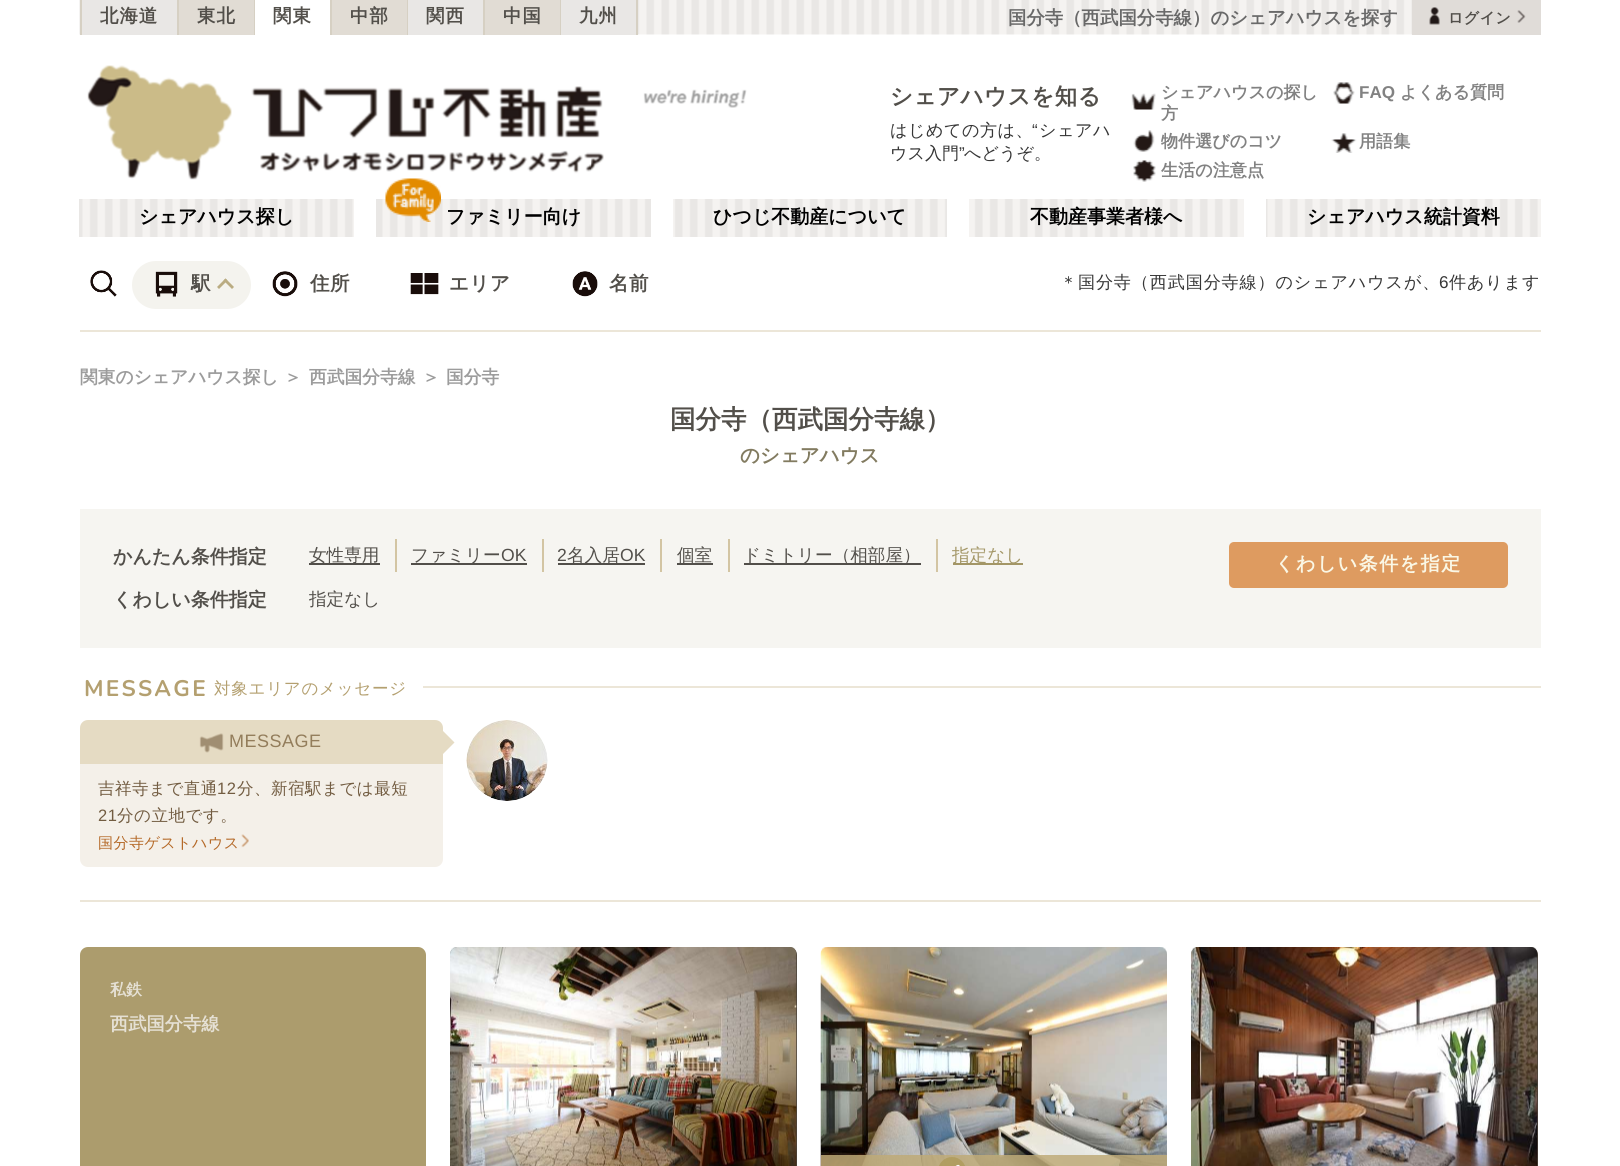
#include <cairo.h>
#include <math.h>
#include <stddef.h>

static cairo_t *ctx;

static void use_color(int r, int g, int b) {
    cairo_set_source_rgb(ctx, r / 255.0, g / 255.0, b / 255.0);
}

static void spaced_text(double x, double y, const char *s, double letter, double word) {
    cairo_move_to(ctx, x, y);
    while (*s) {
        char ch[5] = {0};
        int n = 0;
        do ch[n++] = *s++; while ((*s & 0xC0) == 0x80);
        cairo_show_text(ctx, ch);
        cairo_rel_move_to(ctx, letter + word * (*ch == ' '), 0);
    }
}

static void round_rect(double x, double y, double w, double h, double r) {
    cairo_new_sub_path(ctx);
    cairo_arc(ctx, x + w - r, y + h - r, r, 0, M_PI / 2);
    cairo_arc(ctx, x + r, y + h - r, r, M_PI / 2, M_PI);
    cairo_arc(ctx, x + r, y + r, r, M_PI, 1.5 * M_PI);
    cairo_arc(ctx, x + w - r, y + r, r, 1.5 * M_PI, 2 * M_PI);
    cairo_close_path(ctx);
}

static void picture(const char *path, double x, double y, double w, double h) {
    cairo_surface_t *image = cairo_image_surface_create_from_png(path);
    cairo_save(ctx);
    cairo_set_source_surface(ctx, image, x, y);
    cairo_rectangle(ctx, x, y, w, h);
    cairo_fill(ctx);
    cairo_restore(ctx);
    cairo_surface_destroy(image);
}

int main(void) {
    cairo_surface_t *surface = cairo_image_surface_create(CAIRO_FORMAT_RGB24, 1620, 1166);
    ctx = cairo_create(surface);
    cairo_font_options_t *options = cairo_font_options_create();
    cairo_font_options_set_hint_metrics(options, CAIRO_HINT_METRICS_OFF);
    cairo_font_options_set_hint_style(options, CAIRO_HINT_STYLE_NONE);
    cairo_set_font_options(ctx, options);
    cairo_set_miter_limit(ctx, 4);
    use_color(255, 255, 255);
    cairo_paint(ctx);
    picture("img1.png", 79, 0, 1333, 35);
    use_color(233, 231, 229);
    cairo_rectangle(ctx, 82, 0, 95, 35);
    cairo_fill(ctx);
    use_color(214, 208, 195);
    cairo_rectangle(ctx, 177, 0, 2, 35);
    cairo_fill(ctx);
    cairo_rectangle(ctx, 80, 0, 2, 35);
    cairo_fill(ctx);
    cairo_select_font_face(ctx, "WenQuanYi Zen Hei", CAIRO_FONT_SLANT_NORMAL, CAIRO_FONT_WEIGHT_BOLD);
    cairo_set_font_size(ctx, 18.4);
    use_color(82, 79, 74);
    spaced_text(100, 22, "北海道", 1, 0);
    use_color(225, 220, 212);
    cairo_rectangle(ctx, 179, 0, 75, 35);
    cairo_fill(ctx);
    use_color(214, 208, 195);
    cairo_rectangle(ctx, 254, 0, 1, 35);
    cairo_fill(ctx);
    use_color(82, 79, 74);
    spaced_text(197, 22, "東北", 1, 0);
    use_color(255, 255, 255);
    cairo_rectangle(ctx, 255, 0, 75, 35);
    cairo_fill(ctx);
    use_color(214, 208, 195);
    cairo_rectangle(ctx, 330, 0, 2, 35);
    cairo_fill(ctx);
    use_color(82, 79, 74);
    spaced_text(273, 22, "関東", 1, 0);
    use_color(225, 220, 212);
    cairo_rectangle(ctx, 332, 0, 75, 35);
    cairo_fill(ctx);
    use_color(214, 208, 195);
    cairo_rectangle(ctx, 407, 0, 1, 35);
    cairo_fill(ctx);
    use_color(82, 79, 74);
    spaced_text(350, 22, "中部", 1, 0);
    use_color(233, 231, 229);
    cairo_rectangle(ctx, 408, 0, 75, 35);
    cairo_fill(ctx);
    use_color(214, 208, 195);
    cairo_rectangle(ctx, 483, 0, 2, 35);
    cairo_fill(ctx);
    use_color(82, 79, 74);
    spaced_text(426, 22, "関西", 1, 0);
    use_color(225, 220, 212);
    cairo_rectangle(ctx, 485, 0, 75, 35);
    cairo_fill(ctx);
    use_color(214, 208, 195);
    cairo_rectangle(ctx, 560, 0, 1, 35);
    cairo_fill(ctx);
    use_color(82, 79, 74);
    spaced_text(503, 22, "中国", 1, 0);
    use_color(233, 231, 229);
    cairo_rectangle(ctx, 561, 0, 75, 35);
    cairo_fill(ctx);
    use_color(214, 208, 195);
    cairo_rectangle(ctx, 636, 0, 2, 35);
    cairo_fill(ctx);
    use_color(82, 79, 74);
    spaced_text(579, 22, "九州", 1, 0);
    use_color(105, 105, 105);
    cairo_move_to(ctx, 1008, 24);
    cairo_show_text(ctx, "国分寺（西武国分寺線）のシェアハウスを探す");
    use_color(224, 220, 216);
    cairo_rectangle(ctx, 1412, 0, 129, 35);
    cairo_fill(ctx);
    picture("img2.png", 1429, 7, 11, 18);
    cairo_set_font_size(ctx, 15);
    use_color(82, 79, 74);
    spaced_text(1448, 23, "ログイン", 0.5, 0);
    picture("img3.png", 1517, 10, 9, 13);
    picture("img4.png", 87, 65, 517, 115);
    picture("img5.png", 643, 89, 104, 19);
    cairo_set_font_size(ctx, 22.5);
    spaced_text(890, 104, "シェアハウスを知る", 0.5, 0);
    cairo_select_font_face(ctx, "WenQuanYi Zen Hei Medium", CAIRO_FONT_SLANT_NORMAL, CAIRO_FONT_WEIGHT_NORMAL);
    cairo_set_font_size(ctx, 17.1);
    use_color(54, 54, 54);
    spaced_text(890, 136, "はじめての方は、", 0.5, 0);
    cairo_select_font_face(ctx, "Liberation Sans", CAIRO_FONT_SLANT_NORMAL, CAIRO_FONT_WEIGHT_NORMAL);
    spaced_text(1032, 136, "“", 0.5, 0);
    cairo_select_font_face(ctx, "WenQuanYi Zen Hei Medium", CAIRO_FONT_SLANT_NORMAL, CAIRO_FONT_WEIGHT_NORMAL);
    spaced_text(1039, 136, "シェアハ", 0.5, 0);
    cairo_move_to(ctx, 890, 159);
    cairo_show_text(ctx, "ウス入門");
    cairo_select_font_face(ctx, "Liberation Sans", CAIRO_FONT_SLANT_NORMAL, CAIRO_FONT_WEIGHT_NORMAL);
    cairo_move_to(ctx, 959, 159);
    cairo_show_text(ctx, "”");
    cairo_select_font_face(ctx, "WenQuanYi Zen Hei Medium", CAIRO_FONT_SLANT_NORMAL, CAIRO_FONT_WEIGHT_NORMAL);
    cairo_move_to(ctx, 964, 159);
    cairo_show_text(ctx, "へどうぞ。");
    picture("img6.png", 1131, 93, 25, 17);
    cairo_select_font_face(ctx, "WenQuanYi Zen Hei", CAIRO_FONT_SLANT_NORMAL, CAIRO_FONT_WEIGHT_BOLD);
    use_color(130, 130, 130);
    cairo_move_to(ctx, 1161, 98);
    cairo_show_text(ctx, "シェアハウスの探し");
    cairo_move_to(ctx, 1161, 119);
    cairo_show_text(ctx, "方");
    picture("img7.png", 1333, 82, 22, 22);
    cairo_select_font_face(ctx, "Liberation Sans", CAIRO_FONT_SLANT_NORMAL, CAIRO_FONT_WEIGHT_BOLD);
    cairo_move_to(ctx, 1359, 98);
    cairo_show_text(ctx, "FAQ");
    cairo_select_font_face(ctx, "WenQuanYi Zen Hei", CAIRO_FONT_SLANT_NORMAL, CAIRO_FONT_WEIGHT_BOLD);
    cairo_move_to(ctx, 1400, 98);
    cairo_show_text(ctx, "よくある質問");
    picture("img8.png", 1133, 130, 22, 22);
    cairo_move_to(ctx, 1161, 147);
    cairo_show_text(ctx, "物件選びのコツ");
    picture("img9.png", 1331, 133, 26, 20);
    cairo_move_to(ctx, 1359, 147);
    cairo_show_text(ctx, "用語集");
    picture("img10.png", 1133, 160, 23, 22);
    cairo_move_to(ctx, 1161, 176);
    cairo_show_text(ctx, "生活の注意点");
    picture("img11.png", 79, 199, 275, 38);
    cairo_set_font_size(ctx, 19);
    use_color(0, 0, 0);
    cairo_move_to(ctx, 139, 223);
    cairo_show_text(ctx, "シェアハウス探し");
    picture("img12.png", 376, 199, 275, 38);
    picture("img13.png", 385, 178, 56, 44);
    cairo_move_to(ctx, 446, 223);
    cairo_show_text(ctx, "ファミリー向け");
    picture("img14.png", 673, 199, 274, 38);
    cairo_move_to(ctx, 713, 223);
    cairo_show_text(ctx, "ひつじ不動産について");
    picture("img15.png", 969, 199, 275, 38);
    cairo_move_to(ctx, 1030, 223);
    cairo_show_text(ctx, "不動産事業者様へ");
    picture("img16.png", 1266, 199, 275, 38);
    cairo_move_to(ctx, 1307, 223);
    cairo_show_text(ctx, "シェアハウス統計資料");
    picture("img17.png", 90, 270, 27, 27);
    use_color(244, 243, 238);
    round_rect(132, 261, 119, 48, 24);
    cairo_fill(ctx);
    picture("img18.png", 155, 271, 23, 26);
    cairo_set_font_size(ctx, 19.5);
    use_color(82, 79, 74);
    spaced_text(191, 290, "駅", 0.5, 0);
    use_color(186, 172, 130);
    cairo_new_path(ctx);
    cairo_move_to(ctx, 217, 287);
    cairo_line_to(ctx, 225.5, 278.5);
    cairo_line_to(ctx, 227.5, 280.5);
    cairo_line_to(ctx, 219, 289);
    cairo_close_path(ctx);
    cairo_fill(ctx);
    cairo_new_path(ctx);
    cairo_move_to(ctx, 223.5, 280.5);
    cairo_line_to(ctx, 225.5, 278.5);
    cairo_line_to(ctx, 234, 287);
    cairo_line_to(ctx, 232, 289);
    cairo_close_path(ctx);
    cairo_fill(ctx);
    picture("img19.png", 272, 271, 26, 26);
    use_color(82, 79, 74);
    spaced_text(310, 290, "住所", 0.5, 0);
    picture("img20.png", 410, 273, 29, 22);
    spaced_text(449, 290, "エリア", 0.5, 0);
    picture("img21.png", 572, 271, 26, 26);
    spaced_text(609, 290, "名前", 0.5, 0);
    cairo_select_font_face(ctx, "WenQuanYi Zen Hei Medium", CAIRO_FONT_SLANT_NORMAL, CAIRO_FONT_WEIGHT_NORMAL);
    cairo_set_font_size(ctx, 17.1);
    use_color(54, 54, 54);
    spaced_text(1060, 288, "＊国分寺（西武国分寺線）のシェアハウスが、", 0.85, 0);
    cairo_select_font_face(ctx, "Liberation Sans", CAIRO_FONT_SLANT_NORMAL, CAIRO_FONT_WEIGHT_NORMAL);
    spaced_text(1439, 288, "6", 0.85, 0);
    cairo_select_font_face(ctx, "WenQuanYi Zen Hei Medium", CAIRO_FONT_SLANT_NORMAL, CAIRO_FONT_WEIGHT_NORMAL);
    spaced_text(1449, 288, "件あります", 0.85, 0);
    use_color(236, 230, 216);
    cairo_rectangle(ctx, 80, 330, 1461, 2);
    cairo_fill(ctx);
    cairo_select_font_face(ctx, "WenQuanYi Zen Hei", CAIRO_FONT_SLANT_NORMAL, CAIRO_FONT_WEIGHT_BOLD);
    cairo_set_font_size(ctx, 17.75);
    use_color(156, 156, 156);
    cairo_move_to(ctx, 80, 383);
    cairo_show_text(ctx, "関東のシェアハウス探し");
    cairo_move_to(ctx, 284, 383);
    cairo_show_text(ctx, "＞");
    cairo_move_to(ctx, 309, 383);
    cairo_show_text(ctx, "西武国分寺線");
    cairo_move_to(ctx, 422, 383);
    cairo_show_text(ctx, "＞");
    cairo_move_to(ctx, 446, 383);
    cairo_show_text(ctx, "国分寺");
    cairo_set_font_size(ctx, 25.5);
    use_color(82, 79, 74);
    cairo_move_to(ctx, 670, 428);
    cairo_show_text(ctx, "国分寺（西武国分寺線）");
    cairo_set_font_size(ctx, 19.5);
    use_color(130, 123, 96);
    cairo_move_to(ctx, 740, 462);
    cairo_show_text(ctx, "のシェアハウス");
    use_color(246, 245, 241);
    cairo_rectangle(ctx, 80, 509, 1461, 139);
    cairo_fill(ctx);
    cairo_set_font_size(ctx, 19);
    use_color(82, 79, 74);
    cairo_move_to(ctx, 113, 563);
    cairo_show_text(ctx, "かんたん条件指定");
    use_color(211, 197, 163);
    cairo_rectangle(ctx, 395, 539, 2, 33);
    cairo_fill(ctx);
    use_color(82, 79, 74);
    cairo_rectangle(ctx, 309, 563, 71, 2);
    cairo_fill(ctx);
    cairo_select_font_face(ctx, "WenQuanYi Zen Hei Medium", CAIRO_FONT_SLANT_NORMAL, CAIRO_FONT_WEIGHT_NORMAL);
    cairo_set_font_size(ctx, 17.6);
    cairo_move_to(ctx, 309, 561);
    cairo_show_text(ctx, "女性専用");
    use_color(211, 197, 163);
    cairo_rectangle(ctx, 542, 539, 2, 33);
    cairo_fill(ctx);
    use_color(82, 79, 74);
    cairo_rectangle(ctx, 411, 563, 116, 2);
    cairo_fill(ctx);
    cairo_move_to(ctx, 411, 561);
    cairo_show_text(ctx, "ファミリー");
    cairo_select_font_face(ctx, "Liberation Sans", CAIRO_FONT_SLANT_NORMAL, CAIRO_FONT_WEIGHT_NORMAL);
    cairo_move_to(ctx, 501, 561);
    cairo_show_text(ctx, "OK");
    use_color(211, 197, 163);
    cairo_rectangle(ctx, 660, 539, 2, 33);
    cairo_fill(ctx);
    use_color(82, 79, 74);
    cairo_move_to(ctx, 557, 561);
    cairo_show_text(ctx, "2");
    cairo_rectangle(ctx, 558, 563, 87, 2);
    cairo_fill(ctx);
    cairo_select_font_face(ctx, "WenQuanYi Zen Hei Medium", CAIRO_FONT_SLANT_NORMAL, CAIRO_FONT_WEIGHT_NORMAL);
    cairo_move_to(ctx, 567, 561);
    cairo_show_text(ctx, "名入居");
    cairo_select_font_face(ctx, "Liberation Sans", CAIRO_FONT_SLANT_NORMAL, CAIRO_FONT_WEIGHT_NORMAL);
    cairo_move_to(ctx, 620, 561);
    cairo_show_text(ctx, "OK");
    use_color(211, 197, 163);
    cairo_rectangle(ctx, 728, 539, 2, 33);
    cairo_fill(ctx);
    use_color(82, 79, 74);
    cairo_rectangle(ctx, 677, 563, 36, 2);
    cairo_fill(ctx);
    cairo_select_font_face(ctx, "WenQuanYi Zen Hei Medium", CAIRO_FONT_SLANT_NORMAL, CAIRO_FONT_WEIGHT_NORMAL);
    cairo_move_to(ctx, 677, 561);
    cairo_show_text(ctx, "個室");
    use_color(211, 197, 163);
    cairo_rectangle(ctx, 936, 539, 2, 33);
    cairo_fill(ctx);
    use_color(82, 79, 74);
    cairo_rectangle(ctx, 744, 563, 177, 2);
    cairo_fill(ctx);
    cairo_move_to(ctx, 743, 561);
    cairo_show_text(ctx, "ドミトリー（相部屋）");
    use_color(163, 150, 102);
    cairo_rectangle(ctx, 953, 563, 70, 2);
    cairo_fill(ctx);
    cairo_move_to(ctx, 952, 561);
    cairo_show_text(ctx, "指定なし");
    cairo_select_font_face(ctx, "WenQuanYi Zen Hei", CAIRO_FONT_SLANT_NORMAL, CAIRO_FONT_WEIGHT_BOLD);
    cairo_set_font_size(ctx, 19);
    use_color(82, 79, 74);
    cairo_move_to(ctx, 113, 606);
    cairo_show_text(ctx, "くわしい条件指定");
    cairo_select_font_face(ctx, "WenQuanYi Zen Hei Medium", CAIRO_FONT_SLANT_NORMAL, CAIRO_FONT_WEIGHT_NORMAL);
    cairo_set_font_size(ctx, 17.6);
    cairo_move_to(ctx, 309, 605);
    cairo_show_text(ctx, "指定なし");
    use_color(222, 155, 96);
    round_rect(1229, 542, 279, 46, 5);
    cairo_fill(ctx);
    cairo_select_font_face(ctx, "WenQuanYi Zen Hei", CAIRO_FONT_SLANT_NORMAL, CAIRO_FONT_WEIGHT_BOLD);
    cairo_set_font_size(ctx, 19);
    use_color(250, 247, 229);
    spaced_text(1275, 570, "くわしい条件を指定", 1.5, 0);
    use_color(236, 230, 216);
    cairo_rectangle(ctx, 423, 686, 1118, 2);
    cairo_fill(ctx);
    cairo_select_font_face(ctx, "Nunito", CAIRO_FONT_SLANT_NORMAL, CAIRO_FONT_WEIGHT_BOLD);
    cairo_set_font_size(ctx, 22.5);
    use_color(180, 160, 112);
    spaced_text(84, 696, "MESSAGE", 2.25, 0);
    cairo_select_font_face(ctx, "WenQuanYi Zen Hei Medium", CAIRO_FONT_SLANT_NORMAL, CAIRO_FONT_WEIGHT_NORMAL);
    cairo_set_font_size(ctx, 16.5);
    spaced_text(214, 694, "対象エリアのメッセージ", 0.75, 0);
    use_color(229, 219, 195);
    cairo_new_path(ctx);
    cairo_move_to(ctx, 88, 720);
    cairo_line_to(ctx, 435, 720);
    cairo_curve_to(ctx, 439.5, 720, 443, 723.5, 443, 728);
    cairo_line_to(ctx, 443, 764);
    cairo_line_to(ctx, 80, 764);
    cairo_line_to(ctx, 80, 728);
    cairo_curve_to(ctx, 80, 723.5, 83.5, 720, 88, 720);
    cairo_close_path(ctx);
    cairo_fill(ctx);
    picture("img22.png", 199, 733, 25, 20);
    cairo_select_font_face(ctx, "Liberation Sans", CAIRO_FONT_SLANT_NORMAL, CAIRO_FONT_WEIGHT_NORMAL);
    cairo_set_font_size(ctx, 18);
    use_color(147, 125, 91);
    spaced_text(229, 747, "MESSAGE", 0.5, 0);
    use_color(229, 219, 195);
    cairo_new_path(ctx);
    cairo_move_to(ctx, 442.5, 754.5);
    cairo_line_to(ctx, 442.5, 730.5);
    cairo_line_to(ctx, 454.5, 742.5);
    cairo_close_path(ctx);
    cairo_fill(ctx);
    use_color(244, 240, 233);
    cairo_new_path(ctx);
    cairo_move_to(ctx, 80, 764);
    cairo_line_to(ctx, 443, 764);
    cairo_line_to(ctx, 443, 859);
    cairo_curve_to(ctx, 443, 863.5, 439.5, 867, 435, 867);
    cairo_line_to(ctx, 88, 867);
    cairo_curve_to(ctx, 83.5, 867, 80, 863.5, 80, 859);
    cairo_close_path(ctx);
    cairo_fill(ctx);
    cairo_select_font_face(ctx, "WenQuanYi Zen Hei Medium", CAIRO_FONT_SLANT_NORMAL, CAIRO_FONT_WEIGHT_NORMAL);
    cairo_set_font_size(ctx, 16.5);
    use_color(114, 92, 65);
    spaced_text(98, 794, "吉祥寺まで直通", 0.5, 0);
    cairo_select_font_face(ctx, "Liberation Sans", CAIRO_FONT_SLANT_NORMAL, CAIRO_FONT_WEIGHT_NORMAL);
    spaced_text(217, 794, "12", 0.5, 0);
    cairo_select_font_face(ctx, "WenQuanYi Zen Hei Medium", CAIRO_FONT_SLANT_NORMAL, CAIRO_FONT_WEIGHT_NORMAL);
    spaced_text(237, 794, "分、新宿駅までは最短", 0.5, 0);
    cairo_select_font_face(ctx, "Liberation Sans", CAIRO_FONT_SLANT_NORMAL, CAIRO_FONT_WEIGHT_NORMAL);
    spaced_text(98, 821, "21", 0.5, 0);
    cairo_select_font_face(ctx, "WenQuanYi Zen Hei Medium", CAIRO_FONT_SLANT_NORMAL, CAIRO_FONT_WEIGHT_NORMAL);
    spaced_text(117, 821, "分の立地です。", 0.5, 0);
    cairo_set_font_size(ctx, 15);
    use_color(180, 104, 38);
    spaced_text(98, 848, "国分寺ゲストハウス", 0.5, 0);
    picture("img23.png", 241, 834, 8, 14);
    picture("img24.png", 466, 720, 82, 81);
    use_color(236, 230, 216);
    cairo_rectangle(ctx, 80, 900, 1461, 2);
    cairo_fill(ctx);
    use_color(172, 156, 109);
    round_rect(80, 947, 346, 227, 8);
    cairo_fill(ctx);
    cairo_select_font_face(ctx, "WenQuanYi Zen Hei", CAIRO_FONT_SLANT_NORMAL, CAIRO_FONT_WEIGHT_BOLD);
    cairo_set_font_size(ctx, 16);
    use_color(229, 224, 212);
    cairo_move_to(ctx, 110, 995);
    cairo_show_text(ctx, "私鉄");
    cairo_set_font_size(ctx, 18.25);
    cairo_move_to(ctx, 110, 1030);
    cairo_show_text(ctx, "西武国分寺線");
    use_color(75, 67, 58);
    cairo_new_path(ctx);
    cairo_move_to(ctx, 458, 947);
    cairo_line_to(ctx, 789, 947);
    cairo_curve_to(ctx, 793.5, 947, 797, 950.5, 797, 955);
    cairo_line_to(ctx, 797, 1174);
    cairo_line_to(ctx, 450, 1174);
    cairo_line_to(ctx, 450, 955);
    cairo_curve_to(ctx, 450, 950.5, 453.5, 947, 458, 947);
    cairo_close_path(ctx);
    cairo_fill(ctx);
    picture("img25.png", 450, 947, 347, 219);
    picture("img26.png", 820, 947, 347, 219);
    cairo_set_source_rgba(ctx, 0.749, 0.667, 0.471, 0.85);
    cairo_rectangle(ctx, 821, 1155, 346, 11);
    cairo_fill(ctx);
    cairo_set_source_rgba(ctx, 0.604, 0.518, 0.165, 0.35);
    round_rect(938, 1157, 28, 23, 14);
    cairo_fill(ctx);
    picture("img27.png", 955, 1164, 5, 2);
    use_color(75, 67, 58);
    cairo_new_path(ctx);
    cairo_move_to(ctx, 1199, 947);
    cairo_line_to(ctx, 1530, 947);
    cairo_curve_to(ctx, 1534.5, 947, 1538, 950.5, 1538, 955);
    cairo_line_to(ctx, 1538, 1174);
    cairo_line_to(ctx, 1191, 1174);
    cairo_line_to(ctx, 1191, 955);
    cairo_curve_to(ctx, 1191, 950.5, 1194.5, 947, 1199, 947);
    cairo_close_path(ctx);
    cairo_fill(ctx);
    picture("img28.png", 1191, 947, 347, 219);
    cairo_surface_write_to_png(surface, "result.png");
    cairo_font_options_destroy(options);
    cairo_destroy(ctx);
    cairo_surface_destroy(surface);
    return 0;
}
